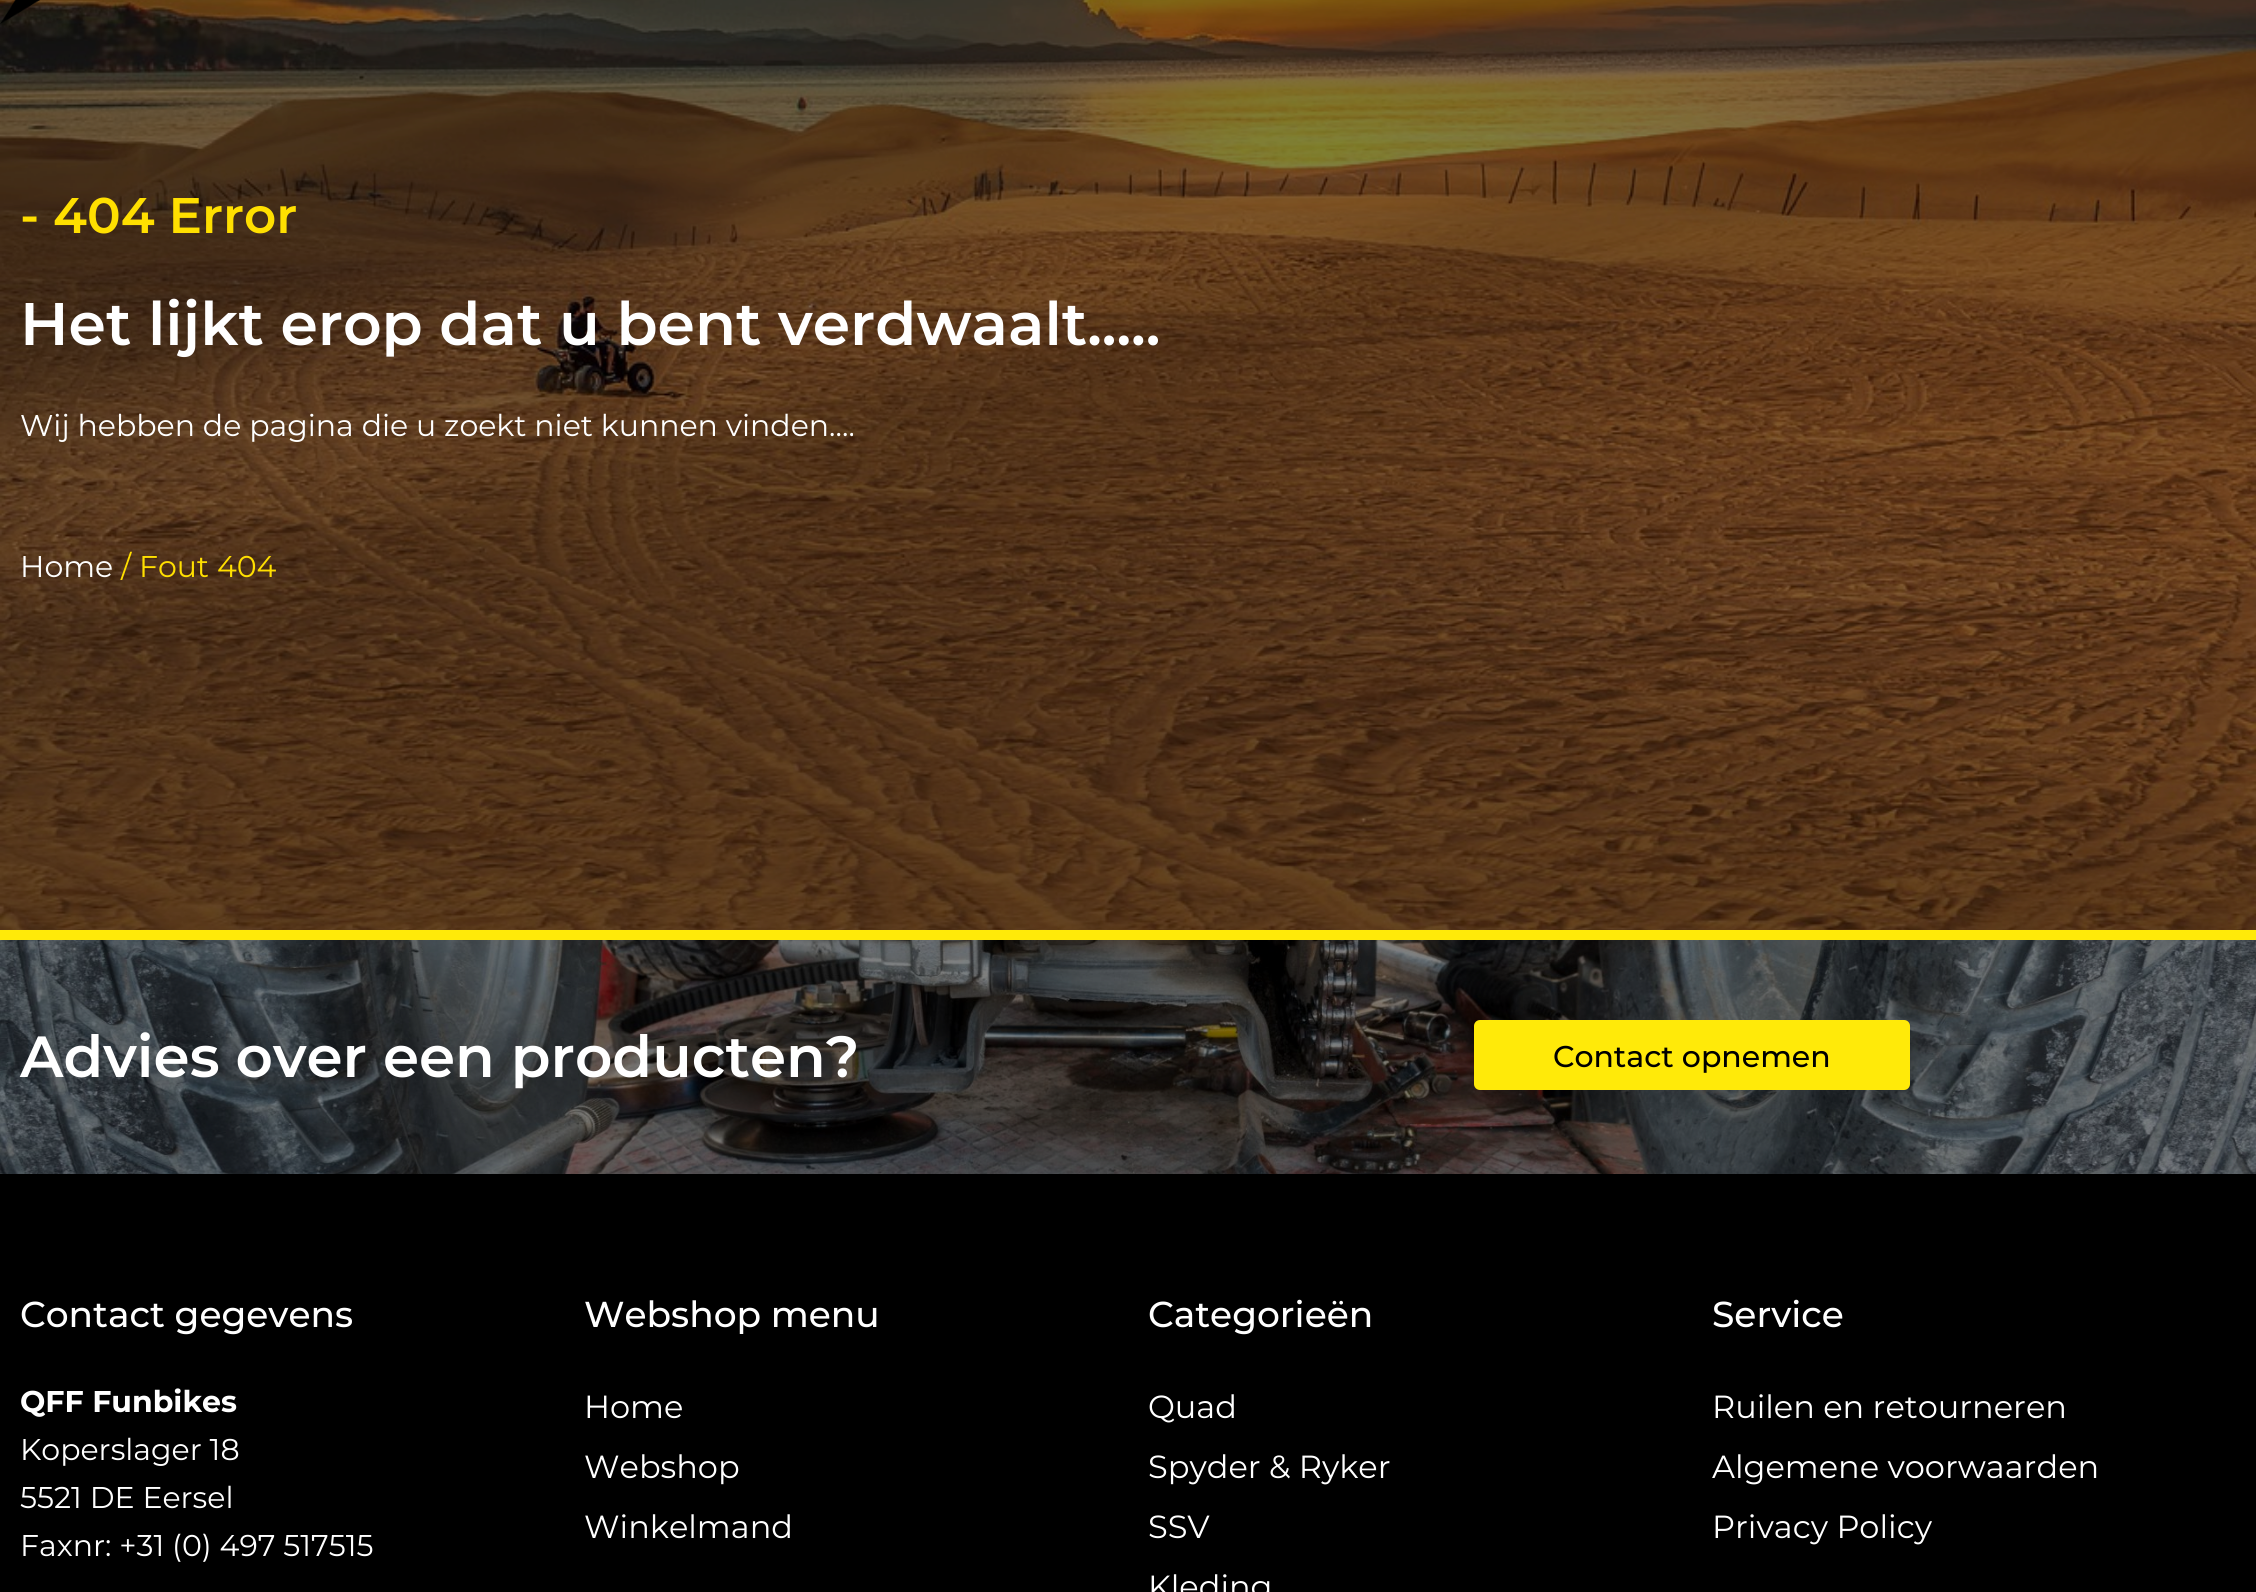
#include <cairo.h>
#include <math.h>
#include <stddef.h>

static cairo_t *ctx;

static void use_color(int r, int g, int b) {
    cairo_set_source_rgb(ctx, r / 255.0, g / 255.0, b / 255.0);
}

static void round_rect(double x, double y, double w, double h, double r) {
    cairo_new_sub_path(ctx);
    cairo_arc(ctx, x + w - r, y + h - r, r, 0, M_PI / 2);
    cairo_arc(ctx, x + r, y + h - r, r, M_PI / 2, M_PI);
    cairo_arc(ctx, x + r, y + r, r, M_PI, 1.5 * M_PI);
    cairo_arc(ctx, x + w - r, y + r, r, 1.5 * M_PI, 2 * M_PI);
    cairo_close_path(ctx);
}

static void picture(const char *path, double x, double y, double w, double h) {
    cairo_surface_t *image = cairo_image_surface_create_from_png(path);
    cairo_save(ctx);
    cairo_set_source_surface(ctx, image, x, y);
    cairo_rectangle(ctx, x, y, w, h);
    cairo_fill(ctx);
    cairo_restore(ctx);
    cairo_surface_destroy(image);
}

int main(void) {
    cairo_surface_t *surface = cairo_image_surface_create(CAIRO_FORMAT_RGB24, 2256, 1592);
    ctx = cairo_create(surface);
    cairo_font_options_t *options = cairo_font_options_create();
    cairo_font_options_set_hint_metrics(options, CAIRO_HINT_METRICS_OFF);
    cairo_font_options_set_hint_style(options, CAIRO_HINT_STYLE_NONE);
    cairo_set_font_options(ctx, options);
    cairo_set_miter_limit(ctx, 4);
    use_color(255, 255, 255);
    cairo_paint(ctx);
    picture("img2.png", 0, 0, 2256, 930);
    picture("img1.png", 0, 0, 40, 24);
    cairo_select_font_face(ctx, "Montserrat SemiBold", CAIRO_FONT_SLANT_NORMAL, CAIRO_FONT_WEIGHT_NORMAL);
    cairo_set_font_size(ctx, 50);
    use_color(255, 223, 0);
    cairo_move_to(ctx, 20, 233);
    cairo_show_text(ctx, "- 404 Error");
    cairo_set_font_size(ctx, 60);
    use_color(255, 255, 255);
    cairo_move_to(ctx, 20, 345);
    cairo_show_text(ctx, "Het lijkt erop dat u bent verdwaalt.....");
    cairo_select_font_face(ctx, "Montserrat", CAIRO_FONT_SLANT_NORMAL, CAIRO_FONT_WEIGHT_NORMAL);
    cairo_set_font_size(ctx, 30);
    cairo_move_to(ctx, 20, 436);
    cairo_show_text(ctx, "Wij hebben de pagina die u zoekt niet kunnen vinden….");
    cairo_move_to(ctx, 20, 577);
    cairo_show_text(ctx, "Home");
    use_color(255, 223, 0);
    cairo_move_to(ctx, 121, 577);
    cairo_show_text(ctx, "/ Fout 404");
    picture("img3.png", 0, 940, 2256, 234);
    use_color(255, 234, 9);
    cairo_rectangle(ctx, 0, 930, 2256, 10);
    cairo_fill(ctx);
    cairo_select_font_face(ctx, "Montserrat SemiBold", CAIRO_FONT_SLANT_NORMAL, CAIRO_FONT_WEIGHT_NORMAL);
    cairo_set_font_size(ctx, 58);
    use_color(255, 255, 255);
    cairo_move_to(ctx, 20, 1077);
    cairo_show_text(ctx, "Advies over een producten?");
    use_color(255, 234, 9);
    round_rect(1474, 1020, 436, 70, 6);
    cairo_fill(ctx);
    cairo_select_font_face(ctx, "Montserrat Medium", CAIRO_FONT_SLANT_NORMAL, CAIRO_FONT_WEIGHT_NORMAL);
    cairo_set_font_size(ctx, 30);
    use_color(0, 0, 0);
    cairo_move_to(ctx, 1553, 1067);
    cairo_show_text(ctx, "Contact opnemen");
    cairo_rectangle(ctx, 0, 1174, 2256, 418);
    cairo_fill(ctx);
    cairo_set_font_size(ctx, 36);
    use_color(255, 255, 255);
    cairo_move_to(ctx, 20, 1327);
    cairo_show_text(ctx, "Contact gegevens");
    cairo_select_font_face(ctx, "Montserrat", CAIRO_FONT_SLANT_NORMAL, CAIRO_FONT_WEIGHT_BOLD);
    cairo_set_font_size(ctx, 30);
    cairo_move_to(ctx, 20, 1412);
    cairo_show_text(ctx, "QFF Funbikes");
    cairo_select_font_face(ctx, "Montserrat", CAIRO_FONT_SLANT_NORMAL, CAIRO_FONT_WEIGHT_NORMAL);
    cairo_move_to(ctx, 20, 1460);
    cairo_show_text(ctx, "Koperslager 18");
    cairo_move_to(ctx, 20, 1508);
    cairo_show_text(ctx, "5521 DE Eersel");
    cairo_move_to(ctx, 20, 1556);
    cairo_show_text(ctx, "Faxnr: +31 (0) 497 517515");
    cairo_select_font_face(ctx, "Montserrat Medium", CAIRO_FONT_SLANT_NORMAL, CAIRO_FONT_WEIGHT_NORMAL);
    cairo_set_font_size(ctx, 36);
    cairo_move_to(ctx, 584, 1327);
    cairo_show_text(ctx, "Webshop menu");
    cairo_select_font_face(ctx, "Montserrat", CAIRO_FONT_SLANT_NORMAL, CAIRO_FONT_WEIGHT_NORMAL);
    cairo_set_font_size(ctx, 32);
    cairo_move_to(ctx, 584, 1418);
    cairo_show_text(ctx, "Home");
    cairo_move_to(ctx, 584, 1478);
    cairo_show_text(ctx, "Webshop");
    cairo_move_to(ctx, 584, 1538);
    cairo_show_text(ctx, "Winkelmand");
    cairo_select_font_face(ctx, "Montserrat Medium", CAIRO_FONT_SLANT_NORMAL, CAIRO_FONT_WEIGHT_NORMAL);
    cairo_set_font_size(ctx, 36);
    cairo_move_to(ctx, 1148, 1327);
    cairo_show_text(ctx, "Categorieën");
    cairo_select_font_face(ctx, "Montserrat", CAIRO_FONT_SLANT_NORMAL, CAIRO_FONT_WEIGHT_NORMAL);
    cairo_set_font_size(ctx, 32);
    cairo_move_to(ctx, 1148, 1418);
    cairo_show_text(ctx, "Quad");
    cairo_move_to(ctx, 1148, 1478);
    cairo_show_text(ctx, "Spyder & Ryker");
    cairo_move_to(ctx, 1148, 1538);
    cairo_show_text(ctx, "SSV");
    cairo_move_to(ctx, 1148, 1598);
    cairo_show_text(ctx, "Kleding");
    cairo_select_font_face(ctx, "Montserrat Medium", CAIRO_FONT_SLANT_NORMAL, CAIRO_FONT_WEIGHT_NORMAL);
    cairo_set_font_size(ctx, 36);
    cairo_move_to(ctx, 1712, 1327);
    cairo_show_text(ctx, "Service");
    cairo_select_font_face(ctx, "Montserrat", CAIRO_FONT_SLANT_NORMAL, CAIRO_FONT_WEIGHT_NORMAL);
    cairo_set_font_size(ctx, 32);
    cairo_move_to(ctx, 1712, 1418);
    cairo_show_text(ctx, "Ruilen en retourneren");
    cairo_move_to(ctx, 1712, 1478);
    cairo_show_text(ctx, "Algemene voorwaarden");
    cairo_move_to(ctx, 1712, 1538);
    cairo_show_text(ctx, "Privacy Policy");
    cairo_surface_write_to_png(surface, "result.png");
    cairo_font_options_destroy(options);
    cairo_destroy(ctx);
    cairo_surface_destroy(surface);
    return 0;
}
